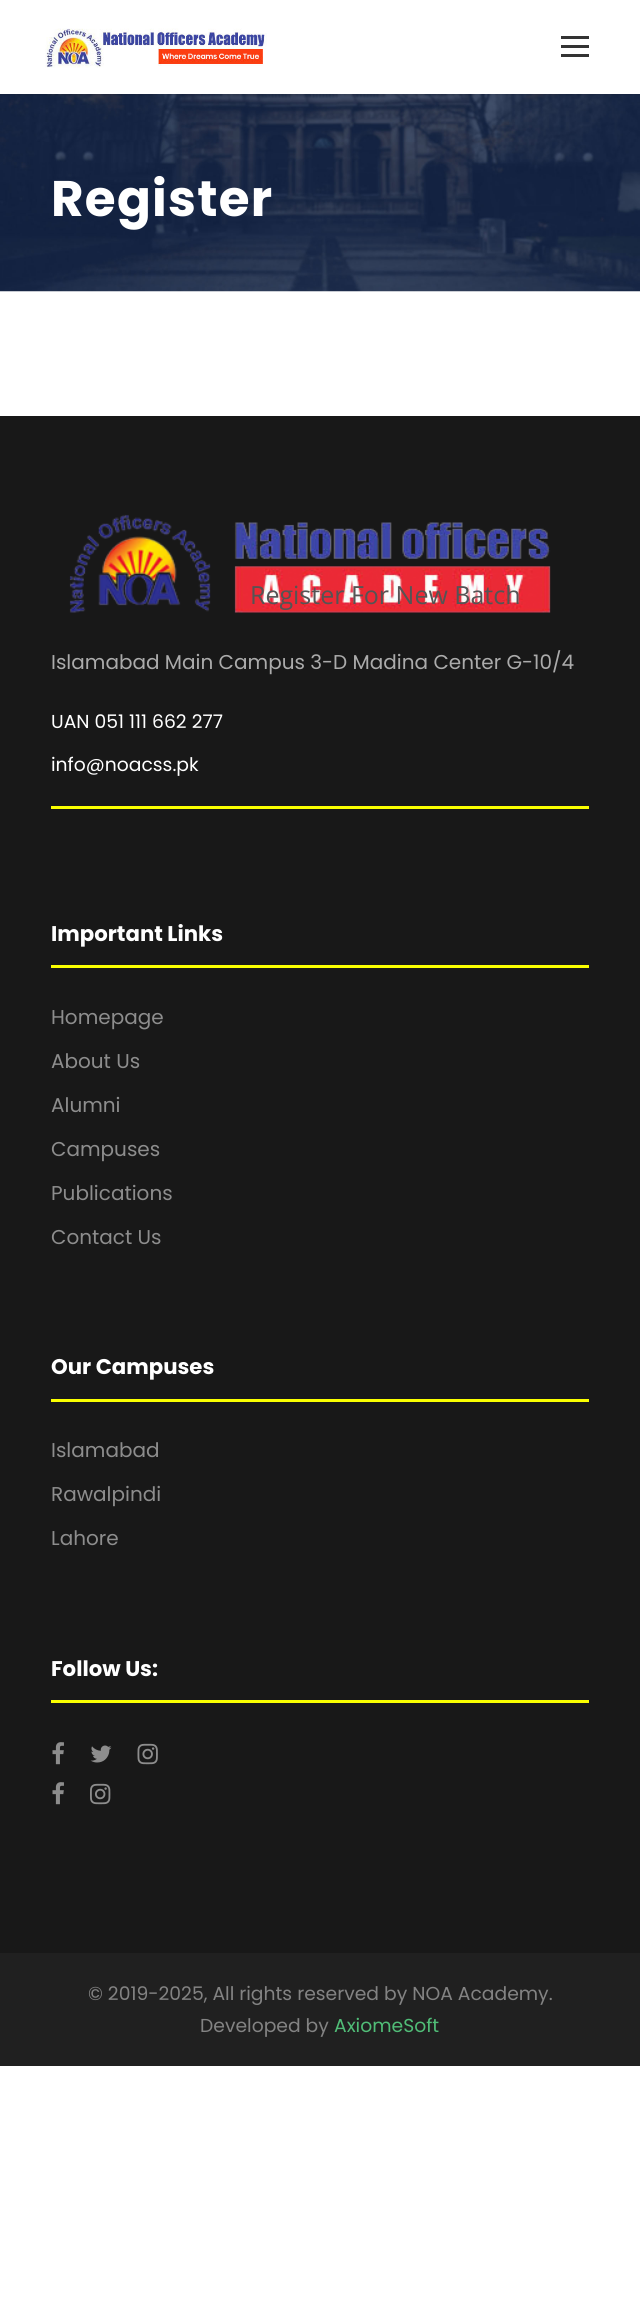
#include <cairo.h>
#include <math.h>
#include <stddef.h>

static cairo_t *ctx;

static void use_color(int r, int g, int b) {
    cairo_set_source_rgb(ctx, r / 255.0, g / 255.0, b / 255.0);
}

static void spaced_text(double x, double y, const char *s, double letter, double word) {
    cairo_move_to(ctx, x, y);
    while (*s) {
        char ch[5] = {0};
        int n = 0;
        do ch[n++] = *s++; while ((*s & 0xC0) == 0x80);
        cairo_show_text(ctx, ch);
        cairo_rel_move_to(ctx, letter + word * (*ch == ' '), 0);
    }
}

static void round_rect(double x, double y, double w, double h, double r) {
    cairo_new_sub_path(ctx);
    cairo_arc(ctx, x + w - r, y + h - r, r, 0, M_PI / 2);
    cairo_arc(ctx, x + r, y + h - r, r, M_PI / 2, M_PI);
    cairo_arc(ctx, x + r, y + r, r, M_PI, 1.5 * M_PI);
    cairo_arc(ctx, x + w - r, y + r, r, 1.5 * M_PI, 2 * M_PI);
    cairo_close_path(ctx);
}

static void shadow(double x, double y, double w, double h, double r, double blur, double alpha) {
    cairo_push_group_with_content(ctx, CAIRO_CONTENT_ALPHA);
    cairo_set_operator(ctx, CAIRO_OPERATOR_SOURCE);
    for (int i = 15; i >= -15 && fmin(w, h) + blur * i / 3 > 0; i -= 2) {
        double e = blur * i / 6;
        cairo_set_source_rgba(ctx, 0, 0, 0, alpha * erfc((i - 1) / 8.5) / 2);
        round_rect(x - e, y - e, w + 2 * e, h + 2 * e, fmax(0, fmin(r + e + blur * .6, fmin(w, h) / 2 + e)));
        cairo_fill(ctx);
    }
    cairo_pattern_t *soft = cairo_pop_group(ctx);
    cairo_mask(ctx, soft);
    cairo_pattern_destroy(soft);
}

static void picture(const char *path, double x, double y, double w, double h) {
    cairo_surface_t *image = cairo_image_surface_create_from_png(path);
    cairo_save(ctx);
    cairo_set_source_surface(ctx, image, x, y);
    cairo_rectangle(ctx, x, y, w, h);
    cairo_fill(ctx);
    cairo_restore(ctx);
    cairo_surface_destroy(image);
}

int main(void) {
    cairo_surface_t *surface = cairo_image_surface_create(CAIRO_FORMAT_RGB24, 640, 2311);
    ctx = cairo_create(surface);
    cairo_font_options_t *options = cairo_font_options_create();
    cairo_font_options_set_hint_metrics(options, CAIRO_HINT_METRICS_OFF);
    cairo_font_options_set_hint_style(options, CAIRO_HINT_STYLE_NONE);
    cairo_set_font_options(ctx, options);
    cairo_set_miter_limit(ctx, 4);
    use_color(255, 255, 255);
    cairo_paint(ctx);
    picture("img2.png", 0, 94, 640, 198);
    use_color(0, 0, 0);
    shadow(0, 1, 640, 94, 0, 1, 0.1);
    use_color(255, 255, 255);
    cairo_rectangle(ctx, 0, 0, 640, 94);
    cairo_fill(ctx);
    picture("img1.png", 45, 28, 222, 40);
    use_color(51, 51, 51);
    cairo_rectangle(ctx, 561, 36, 28, 3);
    cairo_fill(ctx);
    cairo_rectangle(ctx, 561, 45, 28, 3);
    cairo_fill(ctx);
    cairo_rectangle(ctx, 561, 54, 28, 3);
    cairo_fill(ctx);
    cairo_select_font_face(ctx, "Poppins", CAIRO_FONT_SLANT_NORMAL, CAIRO_FONT_WEIGHT_BOLD);
    cairo_set_font_size(ctx, 50);
    use_color(255, 255, 255);
    spaced_text(51, 216, "Register", 1.25, 0);
    use_color(24, 24, 24);
    cairo_rectangle(ctx, 0, 416, 640, 1537);
    cairo_fill(ctx);
    picture("img3.png", 69, 514, 482, 99);
    cairo_select_font_face(ctx, "Open Sans", CAIRO_FONT_SLANT_NORMAL, CAIRO_FONT_WEIGHT_NORMAL);
    cairo_set_font_size(ctx, 25);
    use_color(84, 84, 84);
    cairo_move_to(ctx, 250, 604);
    cairo_show_text(ctx, "Register For New Batch");
    cairo_select_font_face(ctx, "Poppins", CAIRO_FONT_SLANT_NORMAL, CAIRO_FONT_WEIGHT_NORMAL);
    cairo_set_font_size(ctx, 20);
    use_color(171, 171, 171);
    cairo_move_to(ctx, 51, 669);
    cairo_show_text(ctx, "Islamabad Main Campus 3-D Madina Center G-10/4");
    cairo_set_font_size(ctx, 18.75);
    use_color(255, 255, 255);
    cairo_move_to(ctx, 51, 728);
    cairo_show_text(ctx, "UAN 051 111 662 277");
    cairo_move_to(ctx, 51, 771);
    cairo_show_text(ctx, "info@noacss.pk");
    use_color(250, 255, 0);
    cairo_rectangle(ctx, 51, 806, 538, 3);
    cairo_fill(ctx);
    cairo_rectangle(ctx, 51, 965, 538, 3);
    cairo_fill(ctx);
    cairo_select_font_face(ctx, "Poppins", CAIRO_FONT_SLANT_NORMAL, CAIRO_FONT_WEIGHT_BOLD);
    cairo_set_font_size(ctx, 21.25);
    use_color(255, 255, 255);
    cairo_move_to(ctx, 51, 941);
    cairo_show_text(ctx, "Important Links");
    cairo_select_font_face(ctx, "Poppins", CAIRO_FONT_SLANT_NORMAL, CAIRO_FONT_WEIGHT_NORMAL);
    cairo_set_font_size(ctx, 20);
    use_color(141, 141, 141);
    cairo_move_to(ctx, 51, 1024);
    cairo_show_text(ctx, "Homepage");
    cairo_move_to(ctx, 51, 1068);
    cairo_show_text(ctx, "About Us");
    cairo_move_to(ctx, 51, 1112);
    cairo_show_text(ctx, "Alumni");
    cairo_move_to(ctx, 51, 1156);
    cairo_show_text(ctx, "Campuses");
    cairo_move_to(ctx, 51, 1200);
    cairo_show_text(ctx, "Publications");
    cairo_move_to(ctx, 51, 1244);
    cairo_show_text(ctx, "Contact Us");
    use_color(250, 255, 0);
    cairo_rectangle(ctx, 51, 1399, 538, 3);
    cairo_fill(ctx);
    cairo_select_font_face(ctx, "Poppins", CAIRO_FONT_SLANT_NORMAL, CAIRO_FONT_WEIGHT_BOLD);
    cairo_set_font_size(ctx, 21.25);
    use_color(255, 255, 255);
    cairo_move_to(ctx, 51, 1374);
    cairo_show_text(ctx, "Our Campuses");
    cairo_select_font_face(ctx, "Poppins", CAIRO_FONT_SLANT_NORMAL, CAIRO_FONT_WEIGHT_NORMAL);
    cairo_set_font_size(ctx, 20);
    use_color(141, 141, 141);
    cairo_move_to(ctx, 51, 1457);
    cairo_show_text(ctx, "Islamabad");
    cairo_move_to(ctx, 51, 1501);
    cairo_show_text(ctx, "Rawalpindi");
    cairo_move_to(ctx, 51, 1545);
    cairo_show_text(ctx, "Lahore");
    use_color(250, 255, 0);
    cairo_rectangle(ctx, 51, 1700, 538, 3);
    cairo_fill(ctx);
    cairo_select_font_face(ctx, "Poppins", CAIRO_FONT_SLANT_NORMAL, CAIRO_FONT_WEIGHT_BOLD);
    cairo_set_font_size(ctx, 21.25);
    use_color(255, 255, 255);
    cairo_move_to(ctx, 51, 1676);
    cairo_show_text(ctx, "Follow Us:");
    picture("img4.png", 52, 1742, 12, 23);
    picture("img5.png", 90, 1745, 22, 18);
    picture("img6.png", 137, 1743, 21, 22);
    picture("img4.png", 52, 1782, 12, 23);
    picture("img7.png", 90, 1783, 21, 22);
    use_color(32, 32, 32);
    cairo_rectangle(ctx, 0, 1953, 640, 113);
    cairo_fill(ctx);
    cairo_select_font_face(ctx, "Poppins", CAIRO_FONT_SLANT_NORMAL, CAIRO_FONT_WEIGHT_NORMAL);
    cairo_set_font_size(ctx, 18.75);
    use_color(131, 131, 131);
    cairo_move_to(ctx, 88, 2000);
    cairo_show_text(ctx, "© 2019-2025, All rights reserved by NOA Academy.");
    cairo_move_to(ctx, 200, 2032);
    cairo_show_text(ctx, "Developed by");
    use_color(80, 189, 119);
    cairo_move_to(ctx, 334, 2032);
    cairo_show_text(ctx, "AxiomeSoft");
    cairo_surface_write_to_png(surface, "result.png");
    cairo_font_options_destroy(options);
    cairo_destroy(ctx);
    cairo_surface_destroy(surface);
    return 0;
}
